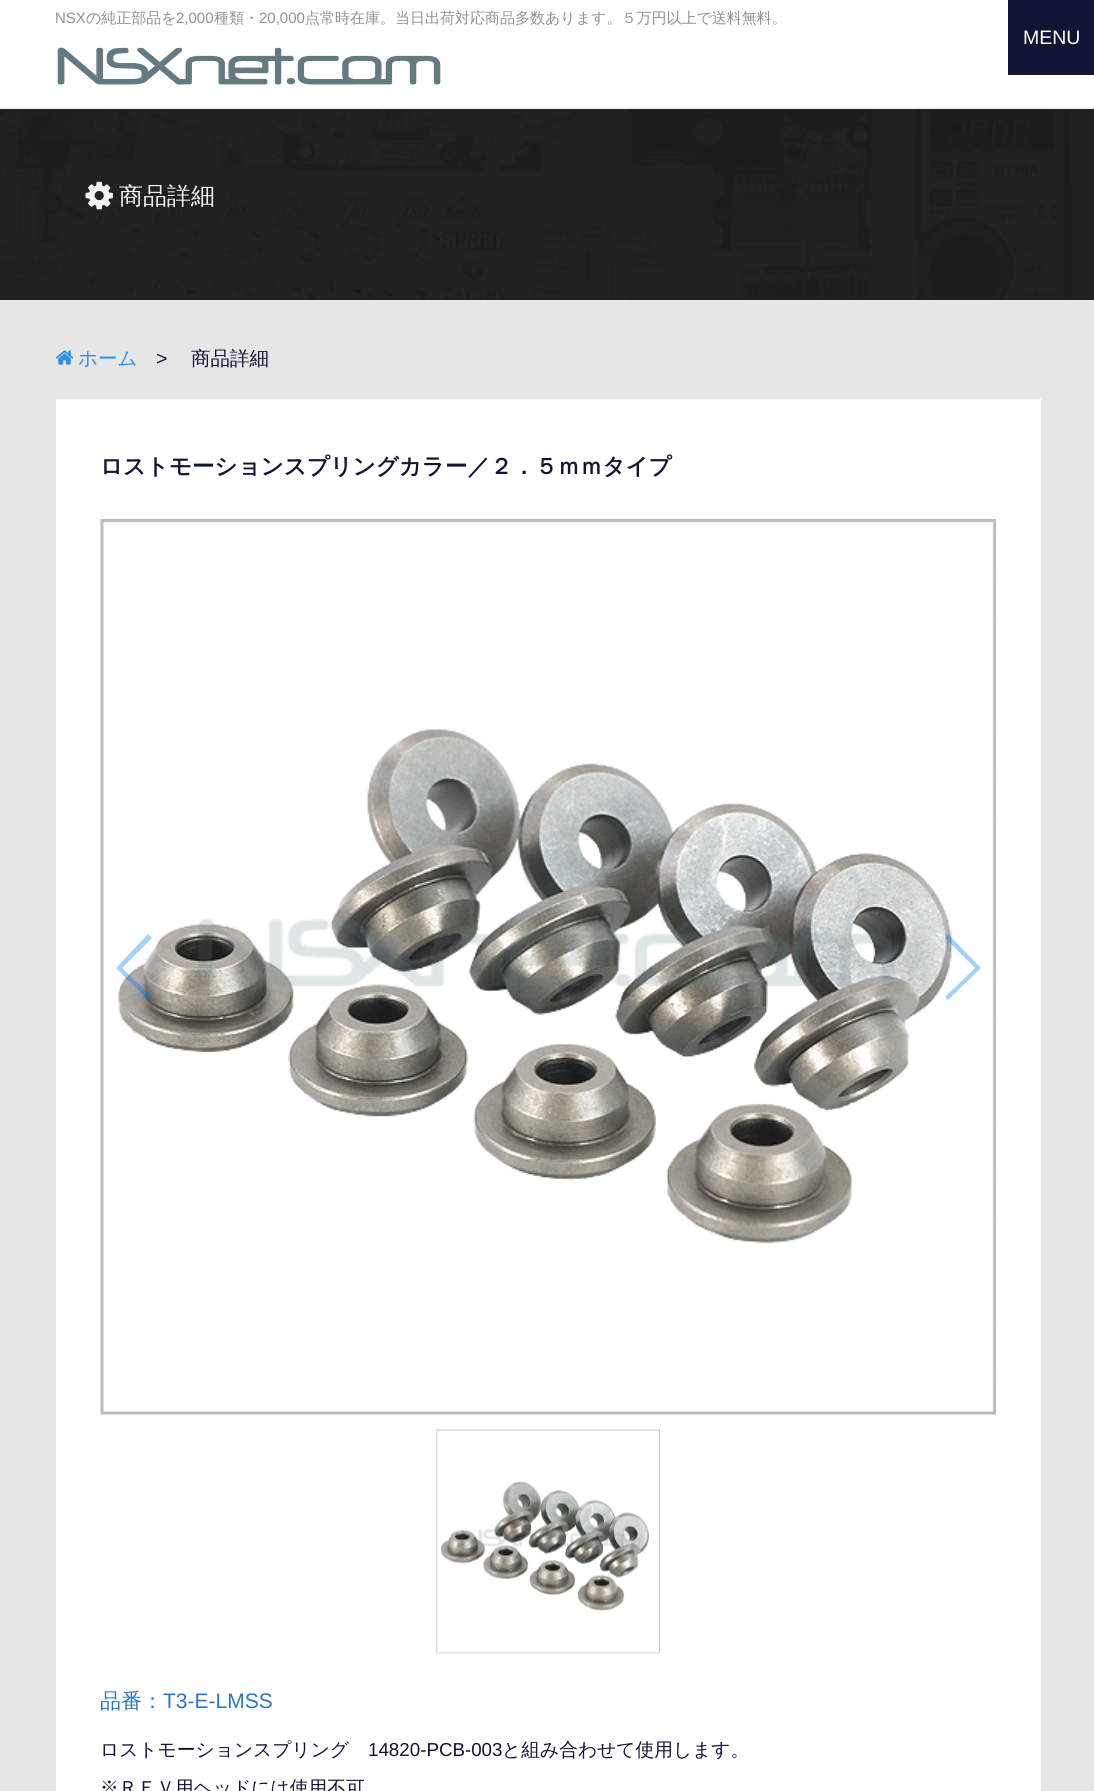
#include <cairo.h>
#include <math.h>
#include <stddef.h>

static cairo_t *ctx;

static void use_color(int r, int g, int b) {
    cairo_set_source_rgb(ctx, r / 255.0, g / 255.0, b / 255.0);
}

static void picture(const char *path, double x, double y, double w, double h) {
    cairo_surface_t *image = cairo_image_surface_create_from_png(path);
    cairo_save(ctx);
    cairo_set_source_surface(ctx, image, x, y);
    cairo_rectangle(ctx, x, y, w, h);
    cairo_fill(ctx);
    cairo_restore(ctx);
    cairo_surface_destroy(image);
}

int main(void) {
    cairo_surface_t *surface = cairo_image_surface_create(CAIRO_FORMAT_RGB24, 1094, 1791);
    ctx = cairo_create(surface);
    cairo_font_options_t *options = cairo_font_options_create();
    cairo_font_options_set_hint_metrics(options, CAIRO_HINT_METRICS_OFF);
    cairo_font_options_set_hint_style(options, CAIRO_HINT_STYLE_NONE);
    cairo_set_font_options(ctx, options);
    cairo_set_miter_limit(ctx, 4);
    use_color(255, 255, 255);
    cairo_paint(ctx);
    use_color(242, 242, 242);
    cairo_rectangle(ctx, 0, 107, 1094, 2);
    cairo_fill(ctx);
    cairo_select_font_face(ctx, "Liberation Sans", CAIRO_FONT_SLANT_NORMAL, CAIRO_FONT_WEIGHT_NORMAL);
    cairo_set_font_size(ctx, 15);
    use_color(144, 144, 144);
    cairo_move_to(ctx, 55, 23);
    cairo_show_text(ctx, "NSX");
    cairo_select_font_face(ctx, "WenQuanYi Zen Hei Medium", CAIRO_FONT_SLANT_NORMAL, CAIRO_FONT_WEIGHT_NORMAL);
    cairo_move_to(ctx, 86, 23);
    cairo_show_text(ctx, "の純正部品を");
    cairo_select_font_face(ctx, "Liberation Sans", CAIRO_FONT_SLANT_NORMAL, CAIRO_FONT_WEIGHT_NORMAL);
    cairo_move_to(ctx, 176, 23);
    cairo_show_text(ctx, "2,000");
    cairo_select_font_face(ctx, "WenQuanYi Zen Hei Medium", CAIRO_FONT_SLANT_NORMAL, CAIRO_FONT_WEIGHT_NORMAL);
    cairo_move_to(ctx, 214, 23);
    cairo_show_text(ctx, "種類・");
    cairo_select_font_face(ctx, "Liberation Sans", CAIRO_FONT_SLANT_NORMAL, CAIRO_FONT_WEIGHT_NORMAL);
    cairo_move_to(ctx, 259, 23);
    cairo_show_text(ctx, "20,000");
    cairo_select_font_face(ctx, "WenQuanYi Zen Hei Medium", CAIRO_FONT_SLANT_NORMAL, CAIRO_FONT_WEIGHT_NORMAL);
    cairo_move_to(ctx, 305, 23);
    cairo_show_text(ctx, "点常時在庫。当日出荷対応商品多数あります。５万円以上で送料無料。");
    use_color(17, 20, 51);
    cairo_rectangle(ctx, 1008, 0, 86, 75);
    cairo_fill(ctx);
    cairo_select_font_face(ctx, "Liberation Sans", CAIRO_FONT_SLANT_NORMAL, CAIRO_FONT_WEIGHT_NORMAL);
    cairo_set_font_size(ctx, 19.5);
    use_color(255, 255, 255);
    cairo_move_to(ctx, 1023, 44);
    cairo_show_text(ctx, "MENU");
    picture("img1.png", 57, 47, 384, 38);
    picture("img2.png", 0, 109, 1094, 191);
    picture("img3.png", 85, 181, 28, 29);
    cairo_select_font_face(ctx, "WenQuanYi Zen Hei Medium", CAIRO_FONT_SLANT_NORMAL, CAIRO_FONT_WEIGHT_NORMAL);
    cairo_set_font_size(ctx, 24);
    use_color(242, 242, 242);
    cairo_move_to(ctx, 119, 204);
    cairo_show_text(ctx, "商品詳細");
    use_color(230, 230, 230);
    cairo_rectangle(ctx, 0, 300, 1094, 1491);
    cairo_fill(ctx);
    picture("img4.png", 55, 350, 19, 15);
    cairo_set_font_size(ctx, 19.5);
    use_color(41, 145, 234);
    cairo_move_to(ctx, 78, 365);
    cairo_show_text(ctx, "ホーム");
    cairo_select_font_face(ctx, "Liberation Sans", CAIRO_FONT_SLANT_NORMAL, CAIRO_FONT_WEIGHT_NORMAL);
    use_color(17, 20, 51);
    cairo_move_to(ctx, 156, 365);
    cairo_show_text(ctx, ">");
    cairo_select_font_face(ctx, "WenQuanYi Zen Hei Medium", CAIRO_FONT_SLANT_NORMAL, CAIRO_FONT_WEIGHT_NORMAL);
    cairo_move_to(ctx, 191, 365);
    cairo_show_text(ctx, "商品詳細");
    use_color(255, 255, 255);
    cairo_rectangle(ctx, 56, 399, 985, 1392);
    cairo_fill(ctx);
    cairo_select_font_face(ctx, "WenQuanYi Zen Hei", CAIRO_FONT_SLANT_NORMAL, CAIRO_FONT_WEIGHT_BOLD);
    cairo_set_font_size(ctx, 22.5);
    use_color(17, 20, 51);
    cairo_move_to(ctx, 100, 474);
    cairo_show_text(ctx, "ロストモーションスプリングカラー／２．５ｍｍタイプ");
    picture("img5.png", 100, 519, 896, 896);
    cairo_set_source_rgba(ctx, 0, 0.478, 1, 0.35);
    cairo_new_path(ctx);
    cairo_move_to(ctx, 116, 968);
    cairo_line_to(ctx, 148, 934);
    cairo_line_to(ctx, 152, 938);
    cairo_line_to(ctx, 122, 968);
    cairo_line_to(ctx, 152, 997);
    cairo_line_to(ctx, 148, 1000);
    cairo_close_path(ctx);
    cairo_fill(ctx);
    cairo_new_path(ctx);
    cairo_move_to(ctx, 981, 968);
    cairo_line_to(ctx, 948, 1000);
    cairo_line_to(ctx, 945, 997);
    cairo_line_to(ctx, 975, 968);
    cairo_line_to(ctx, 945, 938);
    cairo_line_to(ctx, 948, 934);
    cairo_close_path(ctx);
    cairo_fill(ctx);
    picture("img6.png", 436, 1429, 224, 225);
    cairo_select_font_face(ctx, "WenQuanYi Zen Hei Medium", CAIRO_FONT_SLANT_NORMAL, CAIRO_FONT_WEIGHT_NORMAL);
    cairo_set_font_size(ctx, 21);
    use_color(48, 117, 186);
    cairo_move_to(ctx, 100, 1708);
    cairo_show_text(ctx, "品番：");
    cairo_select_font_face(ctx, "Liberation Sans", CAIRO_FONT_SLANT_NORMAL, CAIRO_FONT_WEIGHT_NORMAL);
    cairo_move_to(ctx, 163, 1708);
    cairo_show_text(ctx, "T3-E-LMSS");
    cairo_select_font_face(ctx, "WenQuanYi Zen Hei Medium", CAIRO_FONT_SLANT_NORMAL, CAIRO_FONT_WEIGHT_NORMAL);
    cairo_set_font_size(ctx, 18.75);
    use_color(17, 20, 51);
    cairo_move_to(ctx, 100, 1756);
    cairo_show_text(ctx, "ロストモーションスプリング");
    cairo_select_font_face(ctx, "Liberation Sans", CAIRO_FONT_SLANT_NORMAL, CAIRO_FONT_WEIGHT_NORMAL);
    cairo_move_to(ctx, 368, 1756);
    cairo_show_text(ctx, "14820-PCB-003");
    cairo_select_font_face(ctx, "WenQuanYi Zen Hei Medium", CAIRO_FONT_SLANT_NORMAL, CAIRO_FONT_WEIGHT_NORMAL);
    cairo_move_to(ctx, 502, 1756);
    cairo_show_text(ctx, "と組み合わせて使用します。");
    cairo_move_to(ctx, 100, 1794);
    cairo_show_text(ctx, "※ＲＥＶ用ヘッドには使用不可");
    cairo_surface_write_to_png(surface, "result.png");
    cairo_font_options_destroy(options);
    cairo_destroy(ctx);
    cairo_surface_destroy(surface);
    return 0;
}
